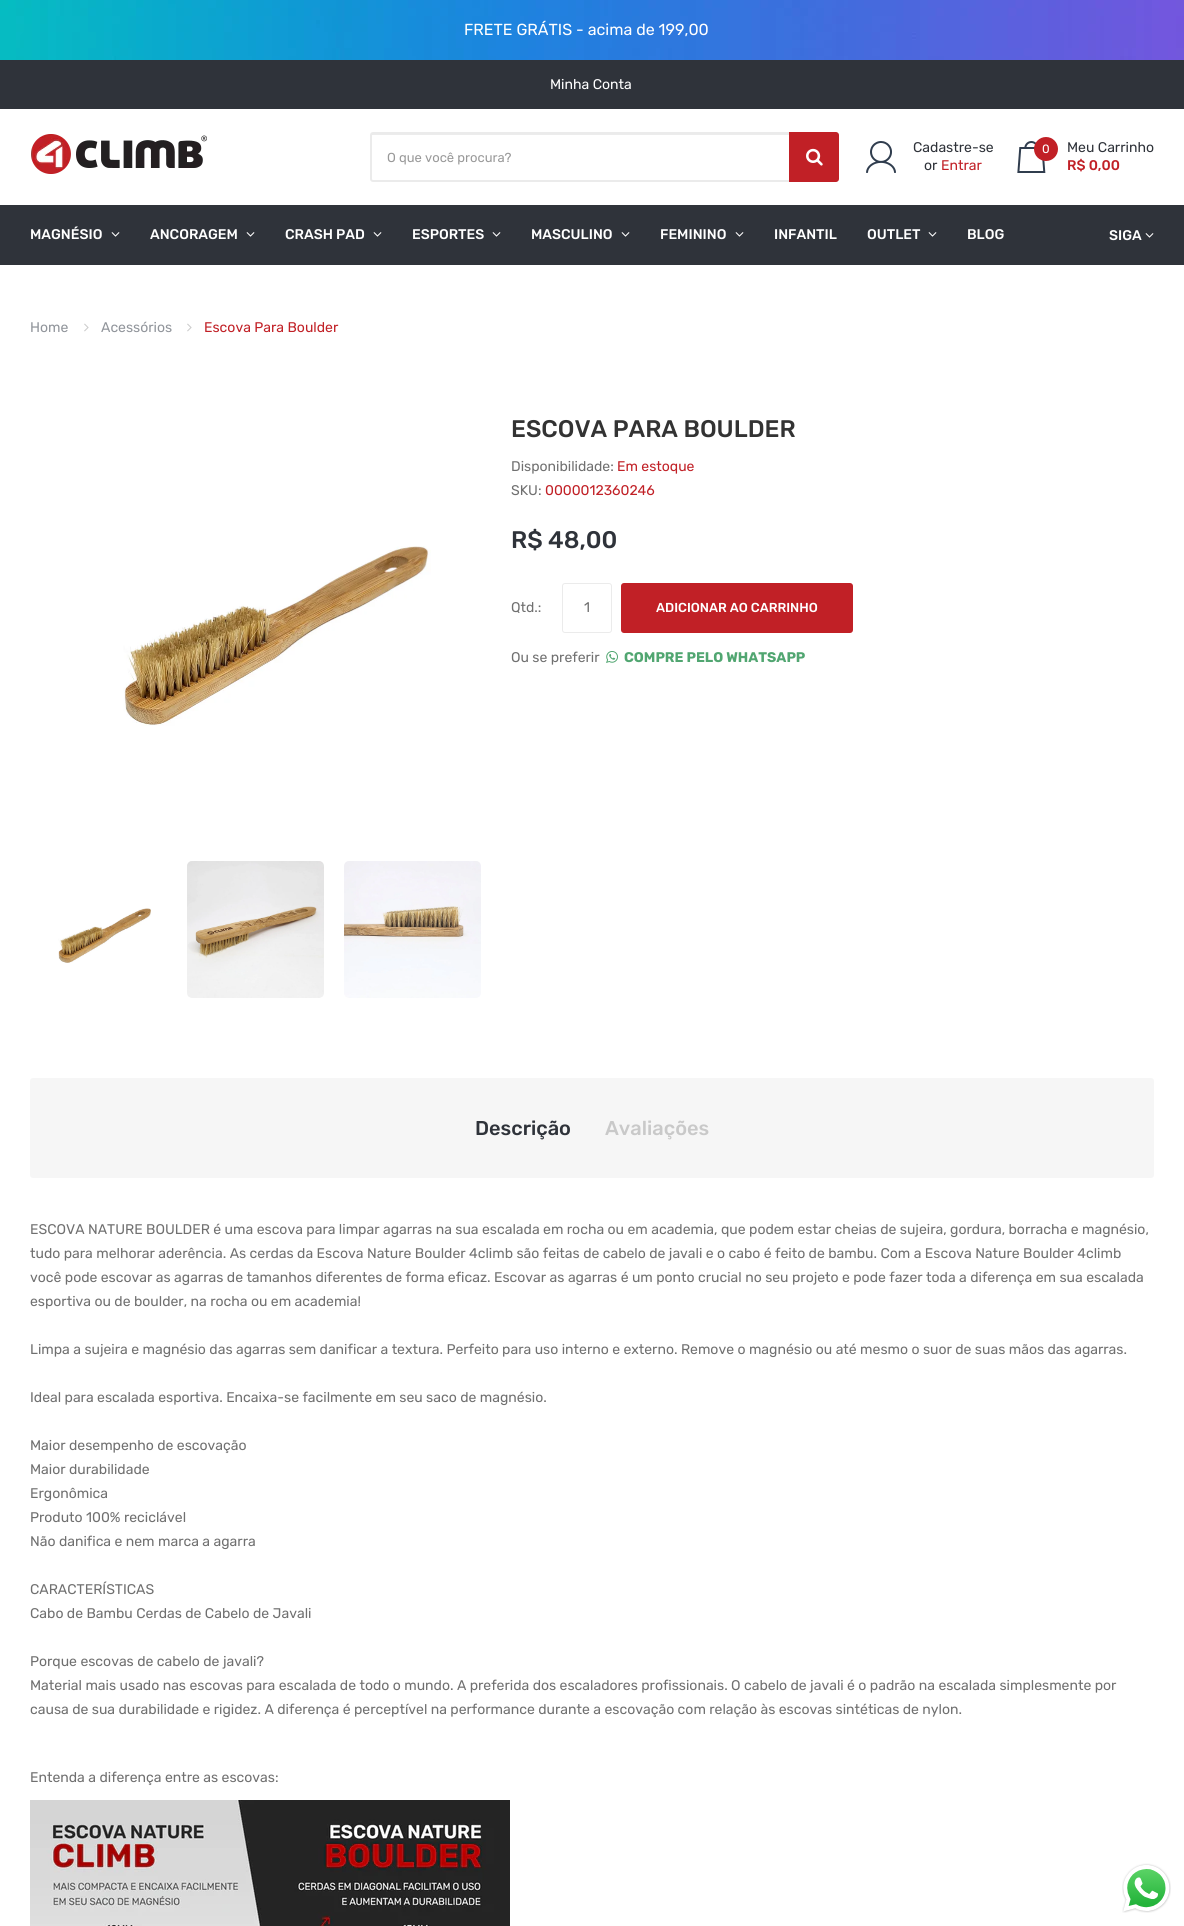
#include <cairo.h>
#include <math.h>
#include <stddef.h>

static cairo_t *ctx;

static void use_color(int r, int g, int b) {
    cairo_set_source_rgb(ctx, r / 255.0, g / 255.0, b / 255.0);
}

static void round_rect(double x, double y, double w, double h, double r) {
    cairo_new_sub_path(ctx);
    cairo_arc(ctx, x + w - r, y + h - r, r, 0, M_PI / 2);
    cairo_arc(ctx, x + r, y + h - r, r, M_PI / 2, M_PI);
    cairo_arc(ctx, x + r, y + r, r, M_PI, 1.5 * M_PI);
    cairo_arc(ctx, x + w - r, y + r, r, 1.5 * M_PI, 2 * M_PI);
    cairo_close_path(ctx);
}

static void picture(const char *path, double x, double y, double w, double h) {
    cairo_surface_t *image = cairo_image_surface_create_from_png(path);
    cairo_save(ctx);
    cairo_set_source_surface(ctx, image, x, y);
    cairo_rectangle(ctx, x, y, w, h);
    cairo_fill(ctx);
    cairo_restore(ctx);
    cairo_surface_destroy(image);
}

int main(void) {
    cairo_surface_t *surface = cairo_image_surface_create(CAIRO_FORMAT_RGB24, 1184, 1926);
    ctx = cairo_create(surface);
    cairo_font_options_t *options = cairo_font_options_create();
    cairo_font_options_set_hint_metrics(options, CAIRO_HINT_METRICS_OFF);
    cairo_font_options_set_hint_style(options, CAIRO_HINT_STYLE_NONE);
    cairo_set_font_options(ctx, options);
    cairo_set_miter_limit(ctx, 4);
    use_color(255, 255, 255);
    cairo_paint(ctx);
    picture("img1.png", 0, 0, 1184, 60);
    cairo_select_font_face(ctx, "Rubik", CAIRO_FONT_SLANT_NORMAL, CAIRO_FONT_WEIGHT_NORMAL);
    cairo_set_font_size(ctx, 16);
    use_color(255, 255, 255);
    cairo_move_to(ctx, 464, 35);
    cairo_show_text(ctx, "FRETE GRÁTIS - acima de 199,00");
    use_color(47, 51, 58);
    cairo_rectangle(ctx, 0, 60, 1184, 49);
    cairo_fill(ctx);
    cairo_set_font_size(ctx, 14);
    use_color(255, 255, 255);
    cairo_move_to(ctx, 550, 89);
    cairo_show_text(ctx, "Minha Conta");
    picture("img2.png", 31, 134, 176, 40);
    use_color(236, 236, 236);
    cairo_new_path(ctx);
    cairo_move_to(ctx, 373, 135);
    cairo_line_to(ctx, 836, 135);
    cairo_curve_to(ctx, 837, 135, 837, 135, 837, 136);
    cairo_line_to(ctx, 837, 135);
    cairo_line_to(ctx, 836, 134);
    cairo_line_to(ctx, 372, 134);
    cairo_line_to(ctx, 372, 136);
    cairo_curve_to(ctx, 372, 135, 372, 135, 373, 135);
    cairo_close_path(ctx);
    cairo_fill(ctx);
    round_rect(371, 133, 467, 48, 2);
    use_color(235, 235, 235);
    cairo_stroke(ctx);
    cairo_set_font_size(ctx, 13);
    use_color(153, 153, 153);
    cairo_move_to(ctx, 387, 162);
    cairo_show_text(ctx, "O que você procura?");
    use_color(193, 32, 38);
    cairo_new_path(ctx);
    cairo_move_to(ctx, 789, 132);
    cairo_line_to(ctx, 836, 132);
    cairo_curve_to(ctx, 837.5, 132, 839, 133.5, 839, 135);
    cairo_line_to(ctx, 839, 179);
    cairo_curve_to(ctx, 839, 180.5, 837.5, 182, 836, 182);
    cairo_line_to(ctx, 789, 182);
    cairo_close_path(ctx);
    cairo_fill(ctx);
    picture("img3.png", 806, 148, 17, 18);
    picture("img4.png", 866, 141, 30, 32);
    cairo_set_font_size(ctx, 14);
    use_color(47, 51, 58);
    cairo_move_to(ctx, 913, 152);
    cairo_show_text(ctx, "Cadastre-se");
    cairo_move_to(ctx, 924, 170);
    cairo_show_text(ctx, "or");
    use_color(193, 32, 38);
    cairo_move_to(ctx, 941, 170);
    cairo_show_text(ctx, "Entrar");
    picture("img5.png", 1017, 141, 29, 32);
    use_color(47, 51, 58);
    cairo_move_to(ctx, 1067, 152);
    cairo_show_text(ctx, "Meu Carrinho");
    cairo_select_font_face(ctx, "Rubik Medium", CAIRO_FONT_SLANT_NORMAL, CAIRO_FONT_WEIGHT_NORMAL);
    use_color(193, 32, 38);
    cairo_move_to(ctx, 1067, 170);
    cairo_show_text(ctx, "R$ 0,00");
    cairo_new_path(ctx);
    cairo_arc(ctx, 1046, 149, 12, 0, 2 * M_PI);
    cairo_fill(ctx);
    cairo_select_font_face(ctx, "Rubik", CAIRO_FONT_SLANT_NORMAL, CAIRO_FONT_WEIGHT_NORMAL);
    cairo_set_font_size(ctx, 12);
    use_color(255, 255, 255);
    cairo_move_to(ctx, 1042, 153);
    cairo_show_text(ctx, "0");
    use_color(47, 51, 58);
    cairo_rectangle(ctx, 0, 205, 1184, 60);
    cairo_fill(ctx);
    cairo_select_font_face(ctx, "Rubik Medium", CAIRO_FONT_SLANT_NORMAL, CAIRO_FONT_WEIGHT_NORMAL);
    cairo_set_font_size(ctx, 14);
    use_color(255, 255, 255);
    cairo_move_to(ctx, 30, 239);
    cairo_show_text(ctx, "MAGNÉSIO");
    picture("img6.png", 111, 232, 9, 5);
    cairo_move_to(ctx, 150, 239);
    cairo_show_text(ctx, "ANCORAGEM");
    picture("img6.png", 246, 232, 9, 5);
    cairo_move_to(ctx, 285, 239);
    cairo_show_text(ctx, "CRASH PAD");
    picture("img6.png", 373, 232, 9, 5);
    cairo_move_to(ctx, 412, 239);
    cairo_show_text(ctx, "ESPORTES");
    picture("img6.png", 492, 232, 9, 5);
    cairo_move_to(ctx, 531, 239);
    cairo_show_text(ctx, "MASCULINO");
    picture("img6.png", 621, 232, 9, 5);
    cairo_move_to(ctx, 660, 239);
    cairo_show_text(ctx, "FEMININO");
    picture("img6.png", 735, 232, 9, 5);
    cairo_move_to(ctx, 774, 239);
    cairo_show_text(ctx, "INFANTIL");
    cairo_move_to(ctx, 867, 239);
    cairo_show_text(ctx, "OUTLET");
    picture("img6.png", 928, 232, 9, 5);
    cairo_move_to(ctx, 967, 239);
    cairo_show_text(ctx, "BLOG");
    cairo_move_to(ctx, 1109, 240);
    cairo_show_text(ctx, "SIGA");
    picture("img6.png", 1145, 233, 9, 5);
    cairo_select_font_face(ctx, "Rubik", CAIRO_FONT_SLANT_NORMAL, CAIRO_FONT_WEIGHT_NORMAL);
    use_color(145, 149, 155);
    cairo_move_to(ctx, 30, 332);
    cairo_show_text(ctx, "Home");
    picture("img7.png", 84, 323, 5, 9);
    cairo_move_to(ctx, 101, 332);
    cairo_show_text(ctx, "Acessórios");
    picture("img7.png", 187, 323, 5, 9);
    use_color(193, 32, 38);
    cairo_move_to(ctx, 204, 332);
    cairo_show_text(ctx, "Escova Para Boulder");
    picture("img8.png", 123, 546, 308, 180);
    picture("img9.png", 58, 908, 93, 55);
    picture("img10.png", 187, 861, 137, 137);
    picture("img11.png", 344, 861, 137, 137);
    cairo_select_font_face(ctx, "Rubik Medium", CAIRO_FONT_SLANT_NORMAL, CAIRO_FONT_WEIGHT_NORMAL);
    cairo_set_font_size(ctx, 24);
    use_color(51, 51, 51);
    cairo_move_to(ctx, 511, 437);
    cairo_show_text(ctx, "ESCOVA PARA BOULDER");
    cairo_select_font_face(ctx, "Rubik", CAIRO_FONT_SLANT_NORMAL, CAIRO_FONT_WEIGHT_NORMAL);
    cairo_set_font_size(ctx, 14);
    use_color(112, 112, 112);
    cairo_move_to(ctx, 511, 471);
    cairo_show_text(ctx, "Disponibilidade:");
    use_color(193, 32, 38);
    cairo_move_to(ctx, 617, 471);
    cairo_show_text(ctx, "Em estoque");
    use_color(112, 112, 112);
    cairo_move_to(ctx, 511, 495);
    cairo_show_text(ctx, "SKU:");
    use_color(193, 32, 38);
    cairo_move_to(ctx, 545, 495);
    cairo_show_text(ctx, "0000012360246");
    cairo_select_font_face(ctx, "Rubik Medium", CAIRO_FONT_SLANT_NORMAL, CAIRO_FONT_WEIGHT_NORMAL);
    cairo_set_font_size(ctx, 24);
    use_color(47, 51, 58);
    cairo_move_to(ctx, 511, 548);
    cairo_show_text(ctx, "R$ 48,00");
    cairo_select_font_face(ctx, "Rubik", CAIRO_FONT_SLANT_NORMAL, CAIRO_FONT_WEIGHT_NORMAL);
    cairo_set_font_size(ctx, 14);
    use_color(112, 112, 112);
    cairo_move_to(ctx, 511, 612);
    cairo_show_text(ctx, "Qtd.:");
    round_rect(562.5, 583.5, 49, 49, 2.5);
    use_color(235, 235, 235);
    cairo_set_line_width(ctx, 1);
    cairo_stroke(ctx);
    use_color(112, 112, 112);
    cairo_move_to(ctx, 584, 612);
    cairo_show_text(ctx, "1");
    use_color(193, 32, 38);
    round_rect(621, 583, 232, 50, 3);
    cairo_fill(ctx);
    cairo_select_font_face(ctx, "Rubik Medium", CAIRO_FONT_SLANT_NORMAL, CAIRO_FONT_WEIGHT_NORMAL);
    cairo_set_font_size(ctx, 13);
    use_color(255, 255, 255);
    cairo_move_to(ctx, 656, 612);
    cairo_show_text(ctx, "ADICIONAR AO CARRINHO");
    cairo_select_font_face(ctx, "Rubik", CAIRO_FONT_SLANT_NORMAL, CAIRO_FONT_WEIGHT_NORMAL);
    cairo_set_font_size(ctx, 14);
    use_color(112, 112, 112);
    cairo_move_to(ctx, 511, 662);
    cairo_show_text(ctx, "Ou se preferir");
    picture("img12.png", 606, 651, 12, 12);
    cairo_select_font_face(ctx, "Rubik", CAIRO_FONT_SLANT_NORMAL, CAIRO_FONT_WEIGHT_BOLD);
    use_color(81, 166, 113);
    cairo_move_to(ctx, 624, 662);
    cairo_show_text(ctx, "COMPRE PELO WHATSAPP");
    use_color(246, 246, 246);
    round_rect(30, 1078, 1124, 100, 3);
    cairo_fill(ctx);
    cairo_select_font_face(ctx, "Rubik Medium", CAIRO_FONT_SLANT_NORMAL, CAIRO_FONT_WEIGHT_NORMAL);
    cairo_set_font_size(ctx, 20);
    use_color(47, 51, 58);
    cairo_move_to(ctx, 475, 1135);
    cairo_show_text(ctx, "Descrição");
    use_color(201, 201, 201);
    cairo_move_to(ctx, 605, 1135);
    cairo_show_text(ctx, "Avaliações");
    cairo_select_font_face(ctx, "Rubik", CAIRO_FONT_SLANT_NORMAL, CAIRO_FONT_WEIGHT_NORMAL);
    cairo_set_font_size(ctx, 14);
    use_color(112, 112, 112);
    cairo_move_to(ctx, 30, 1234);
    cairo_show_text(ctx, "ESCOVA NATURE BOULDER é uma escova para limpar agarras na sua escalada em rocha ou em academia, que podem estar cheias de sujeira, gordura, borracha e magnésio,");
    cairo_move_to(ctx, 30, 1258);
    cairo_show_text(ctx, "tudo para melhorar aderência. As cerdas da Escova Nature Boulder 4climb são feitas de cabelo de javali e o cabo é feito de bambu. Com a Escova Nature Boulder 4climb");
    cairo_move_to(ctx, 30, 1282);
    cairo_show_text(ctx, "você pode escovar as agarras de tamanhos diferentes de forma eficaz. Escovar as agarras é um ponto crucial no seu projeto e pode fazer toda a diferença em sua escalada");
    cairo_move_to(ctx, 30, 1306);
    cairo_show_text(ctx, "esportiva ou de boulder, na rocha ou em academia!");
    cairo_move_to(ctx, 30, 1354);
    cairo_show_text(ctx, "Limpa a sujeira e magnésio das agarras sem danificar a textura. Perfeito para uso interno e externo. Remove o magnésio ou até mesmo o suor de suas mãos das agarras.");
    cairo_move_to(ctx, 30, 1402);
    cairo_show_text(ctx, "Ideal para escalada esportiva. Encaixa-se facilmente em seu saco de magnésio.");
    cairo_move_to(ctx, 30, 1450);
    cairo_show_text(ctx, "Maior desempenho de escovação");
    cairo_move_to(ctx, 30, 1474);
    cairo_show_text(ctx, "Maior durabilidade");
    cairo_move_to(ctx, 30, 1498);
    cairo_show_text(ctx, "Ergonômica");
    cairo_move_to(ctx, 30, 1522);
    cairo_show_text(ctx, "Produto 100% reciclável");
    cairo_move_to(ctx, 30, 1546);
    cairo_show_text(ctx, "Não danifica e nem marca a agarra");
    cairo_move_to(ctx, 30, 1594);
    cairo_show_text(ctx, "CARACTERÍSTICAS");
    cairo_move_to(ctx, 30, 1618);
    cairo_show_text(ctx, "Cabo de Bambu Cerdas de Cabelo de Javali");
    cairo_move_to(ctx, 30, 1666);
    cairo_show_text(ctx, "Porque escovas de cabelo de javali?");
    cairo_move_to(ctx, 30, 1690);
    cairo_show_text(ctx, "Material mais usado nas escovas para escalada de todo o mundo. A preferida dos escaladores profissionais. O cabelo de javali é o padrão na escalada simplesmente por");
    cairo_move_to(ctx, 30, 1714);
    cairo_show_text(ctx, "causa de sua durabilidade e rigidez. A diferença é perceptível na performance durante a escovação com relação às escovas sintéticas de nylon.");
    cairo_move_to(ctx, 30, 1782);
    cairo_show_text(ctx, "Entenda a diferença entre as escovas:");
    picture("img13.png", 30, 1800, 480, 126);
    picture("img14.png", 1122, 1863, 49, 50);
    cairo_surface_write_to_png(surface, "result.png");
    cairo_font_options_destroy(options);
    cairo_destroy(ctx);
    cairo_surface_destroy(surface);
    return 0;
}
